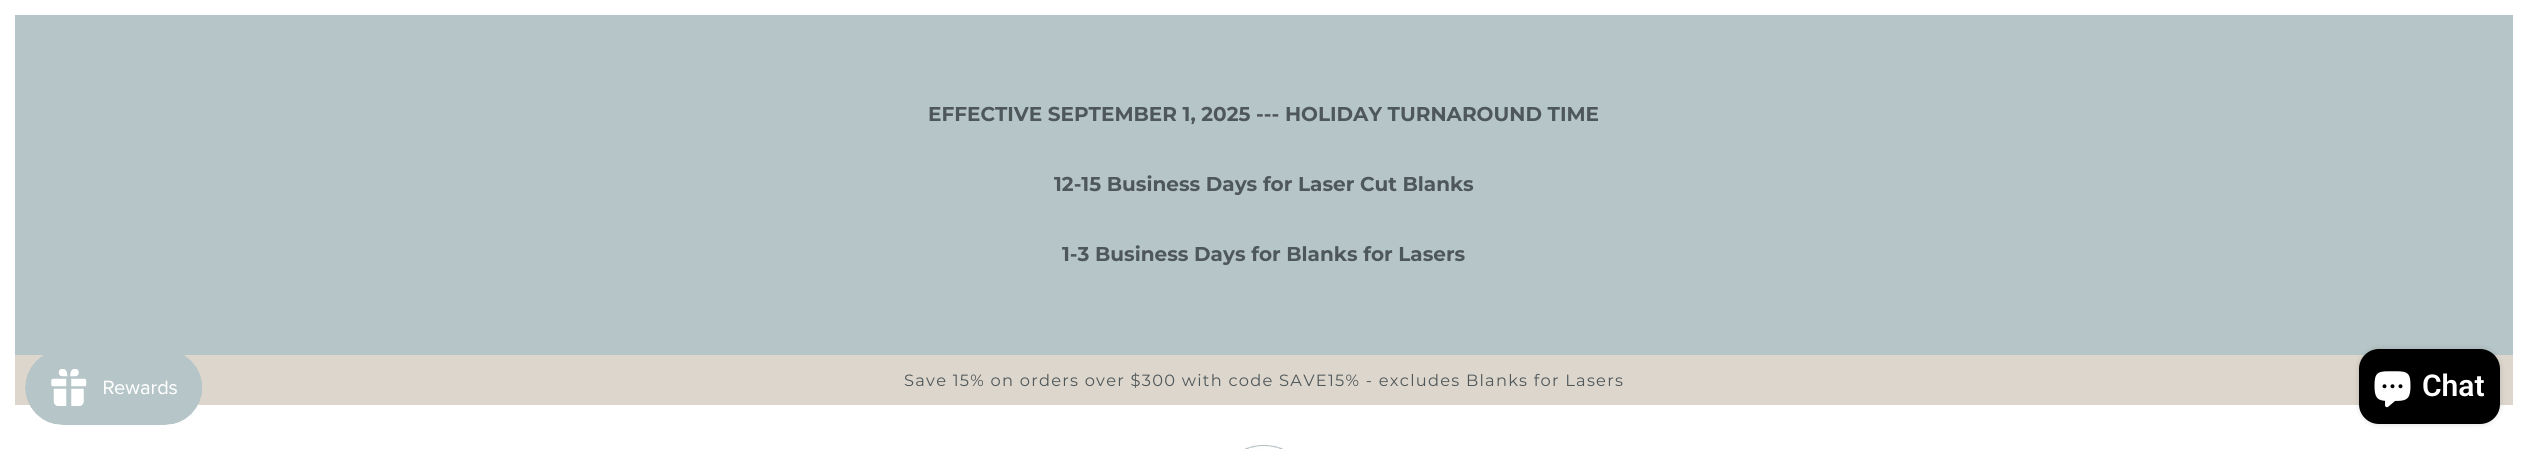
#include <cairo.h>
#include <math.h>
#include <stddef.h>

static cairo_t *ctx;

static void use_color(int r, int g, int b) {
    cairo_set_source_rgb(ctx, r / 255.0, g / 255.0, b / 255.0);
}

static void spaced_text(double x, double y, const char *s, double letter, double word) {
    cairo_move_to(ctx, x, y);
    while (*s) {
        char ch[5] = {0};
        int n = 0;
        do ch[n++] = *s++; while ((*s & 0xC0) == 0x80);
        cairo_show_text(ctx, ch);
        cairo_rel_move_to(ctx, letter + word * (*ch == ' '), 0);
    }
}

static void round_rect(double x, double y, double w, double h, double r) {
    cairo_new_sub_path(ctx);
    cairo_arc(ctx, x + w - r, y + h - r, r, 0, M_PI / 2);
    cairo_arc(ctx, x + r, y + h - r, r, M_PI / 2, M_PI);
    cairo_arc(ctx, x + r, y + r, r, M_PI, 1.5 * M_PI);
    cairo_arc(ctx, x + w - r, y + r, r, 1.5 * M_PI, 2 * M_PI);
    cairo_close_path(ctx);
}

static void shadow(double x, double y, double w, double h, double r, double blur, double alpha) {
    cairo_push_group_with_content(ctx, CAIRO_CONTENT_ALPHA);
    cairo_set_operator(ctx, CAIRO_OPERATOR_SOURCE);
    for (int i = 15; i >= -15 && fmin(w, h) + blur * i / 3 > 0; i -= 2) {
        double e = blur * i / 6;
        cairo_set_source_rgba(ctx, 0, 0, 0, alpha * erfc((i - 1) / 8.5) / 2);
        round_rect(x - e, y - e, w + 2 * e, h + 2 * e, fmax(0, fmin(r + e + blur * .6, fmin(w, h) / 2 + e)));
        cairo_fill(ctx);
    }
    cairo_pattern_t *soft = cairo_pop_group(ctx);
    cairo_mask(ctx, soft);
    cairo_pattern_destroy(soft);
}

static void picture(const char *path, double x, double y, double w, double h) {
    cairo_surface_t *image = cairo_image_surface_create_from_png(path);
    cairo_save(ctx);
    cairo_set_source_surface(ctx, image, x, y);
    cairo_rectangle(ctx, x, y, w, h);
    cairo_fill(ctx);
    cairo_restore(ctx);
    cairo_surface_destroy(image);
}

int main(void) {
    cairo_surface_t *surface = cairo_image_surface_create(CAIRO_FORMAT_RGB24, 2527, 449);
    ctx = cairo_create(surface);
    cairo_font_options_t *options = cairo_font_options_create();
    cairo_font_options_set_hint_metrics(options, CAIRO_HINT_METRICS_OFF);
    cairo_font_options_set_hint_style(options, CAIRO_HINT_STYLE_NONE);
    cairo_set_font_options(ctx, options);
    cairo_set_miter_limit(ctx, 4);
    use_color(255, 255, 255);
    cairo_paint(ctx);
    use_color(221, 214, 204);
    cairo_rectangle(ctx, 15, 355, 2498, 50);
    cairo_fill(ctx);
    picture("img1.png", 25, 355, 178, 70);
    use_color(182, 197, 199);
    cairo_rectangle(ctx, 15, 15, 2498, 340);
    cairo_fill(ctx);
    cairo_select_font_face(ctx, "Montserrat", CAIRO_FONT_SLANT_NORMAL, CAIRO_FONT_WEIGHT_BOLD);
    cairo_set_font_size(ctx, 20);
    use_color(78, 87, 90);
    cairo_move_to(ctx, 928, 121);
    cairo_show_text(ctx, "EFFECTIVE SEPTEMBER 1, 2025 --- HOLIDAY TURNAROUND TIME");
    cairo_move_to(ctx, 1054, 191);
    cairo_show_text(ctx, "12-15 Business Days for Laser Cut Blanks");
    cairo_move_to(ctx, 1062, 261);
    cairo_show_text(ctx, "1-3 Business Days for Blanks for Lasers");
    cairo_select_font_face(ctx, "Montserrat", CAIRO_FONT_SLANT_NORMAL, CAIRO_FONT_WEIGHT_NORMAL);
    cairo_set_font_size(ctx, 16.25);
    spaced_text(904, 386, "Save 15% on orders over $300 with code SAVE15% - excludes Blanks for Lasers", 1.25, 0);
    picture("img2.png", 1245, 445, 38, 4);
    use_color(0, 0, 0);
    shadow(2359, 349, 141, 75, 20, 3, 0.15);
    use_color(0, 0, 0);
    round_rect(2359, 349, 141, 75, 20);
    cairo_fill(ctx);
    picture("img3.png", 2374, 371, 37, 37);
    cairo_select_font_face(ctx, "Roboto SemiBold", CAIRO_FONT_SLANT_NORMAL, CAIRO_FONT_WEIGHT_NORMAL);
    cairo_set_font_size(ctx, 30);
    use_color(255, 255, 255);
    cairo_move_to(ctx, 2422, 396);
    cairo_show_text(ctx, "Chat");
    cairo_surface_write_to_png(surface, "result.png");
    cairo_font_options_destroy(options);
    cairo_destroy(ctx);
    cairo_surface_destroy(surface);
    return 0;
}
